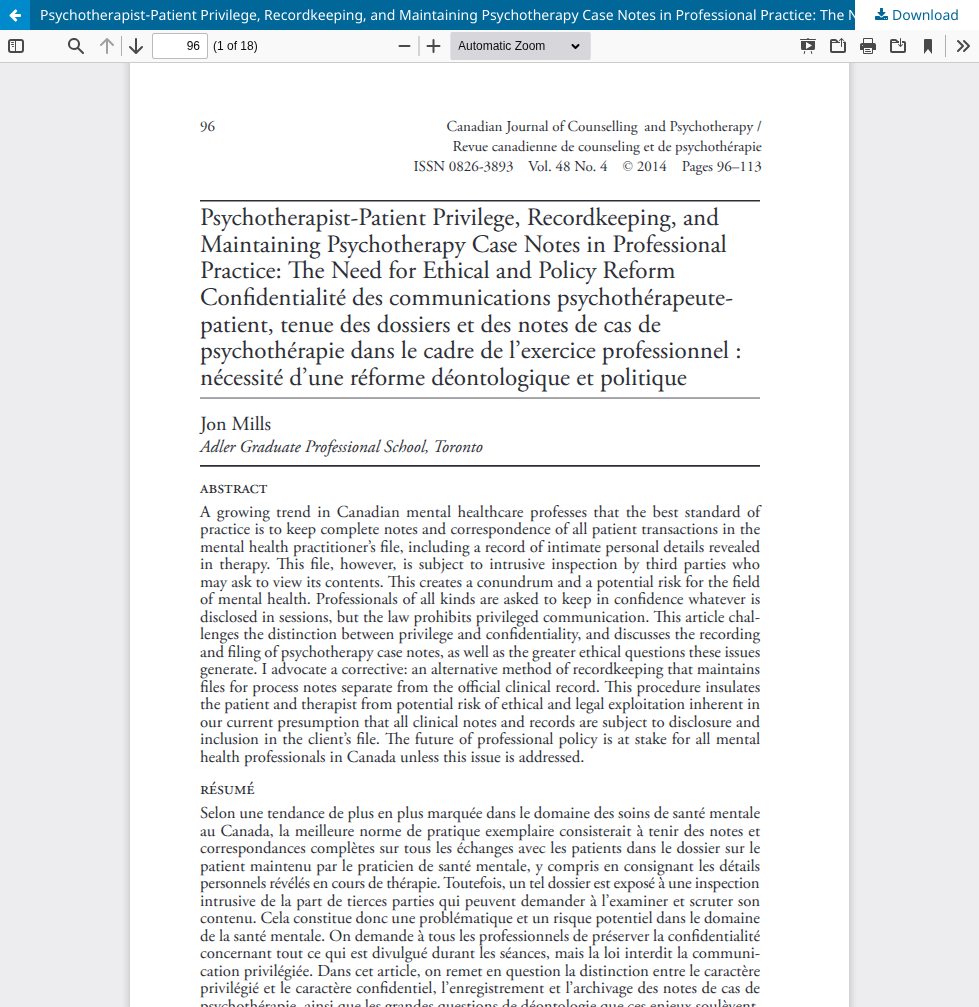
#include <cairo.h>
#include <math.h>
#include <stddef.h>

static cairo_t *ctx;

static void use_color(int r, int g, int b) {
    cairo_set_source_rgb(ctx, r / 255.0, g / 255.0, b / 255.0);
}

static void picture(const char *path, double x, double y, double w, double h) {
    cairo_surface_t *image = cairo_image_surface_create_from_png(path);
    cairo_save(ctx);
    cairo_set_source_surface(ctx, image, x, y);
    cairo_rectangle(ctx, x, y, w, h);
    cairo_fill(ctx);
    cairo_restore(ctx);
    cairo_surface_destroy(image);
}

int main(void) {
    cairo_surface_t *surface = cairo_image_surface_create(CAIRO_FORMAT_RGB24, 979, 1007);
    ctx = cairo_create(surface);
    cairo_font_options_t *options = cairo_font_options_create();
    cairo_font_options_set_hint_metrics(options, CAIRO_HINT_METRICS_OFF);
    cairo_font_options_set_hint_style(options, CAIRO_HINT_STYLE_NONE);
    cairo_set_font_options(ctx, options);
    cairo_set_miter_limit(ctx, 4);
    use_color(255, 255, 255);
    cairo_paint(ctx);
    use_color(0, 103, 152);
    cairo_rectangle(ctx, 30, 0, 825, 30);
    cairo_fill(ctx);
    use_color(0, 138, 203);
    cairo_rectangle(ctx, 0, 0, 30, 30);
    cairo_fill(ctx);
    picture("img1.png", 9, 9, 12, 13);
    cairo_select_font_face(ctx, "Noto Sans", CAIRO_FONT_SLANT_NORMAL, CAIRO_FONT_WEIGHT_NORMAL);
    cairo_set_font_size(ctx, 14);
    use_color(255, 255, 255);
    cairo_move_to(ctx, 40, 20);
    cairo_show_text(ctx, "Psychotherapist-Patient Privilege, Recordkeeping, and Maintaining Psychotherapy Case Notes in Professional Practice: The N");
    picture("img2.png", 875, 8, 13, 12);
    use_color(0, 103, 152);
    cairo_move_to(ctx, 892, 20);
    cairo_show_text(ctx, "Download");
    picture("img3.png", 0, 30, 979, 977);
    cairo_surface_write_to_png(surface, "result.png");
    cairo_font_options_destroy(options);
    cairo_destroy(ctx);
    cairo_surface_destroy(surface);
    return 0;
}
